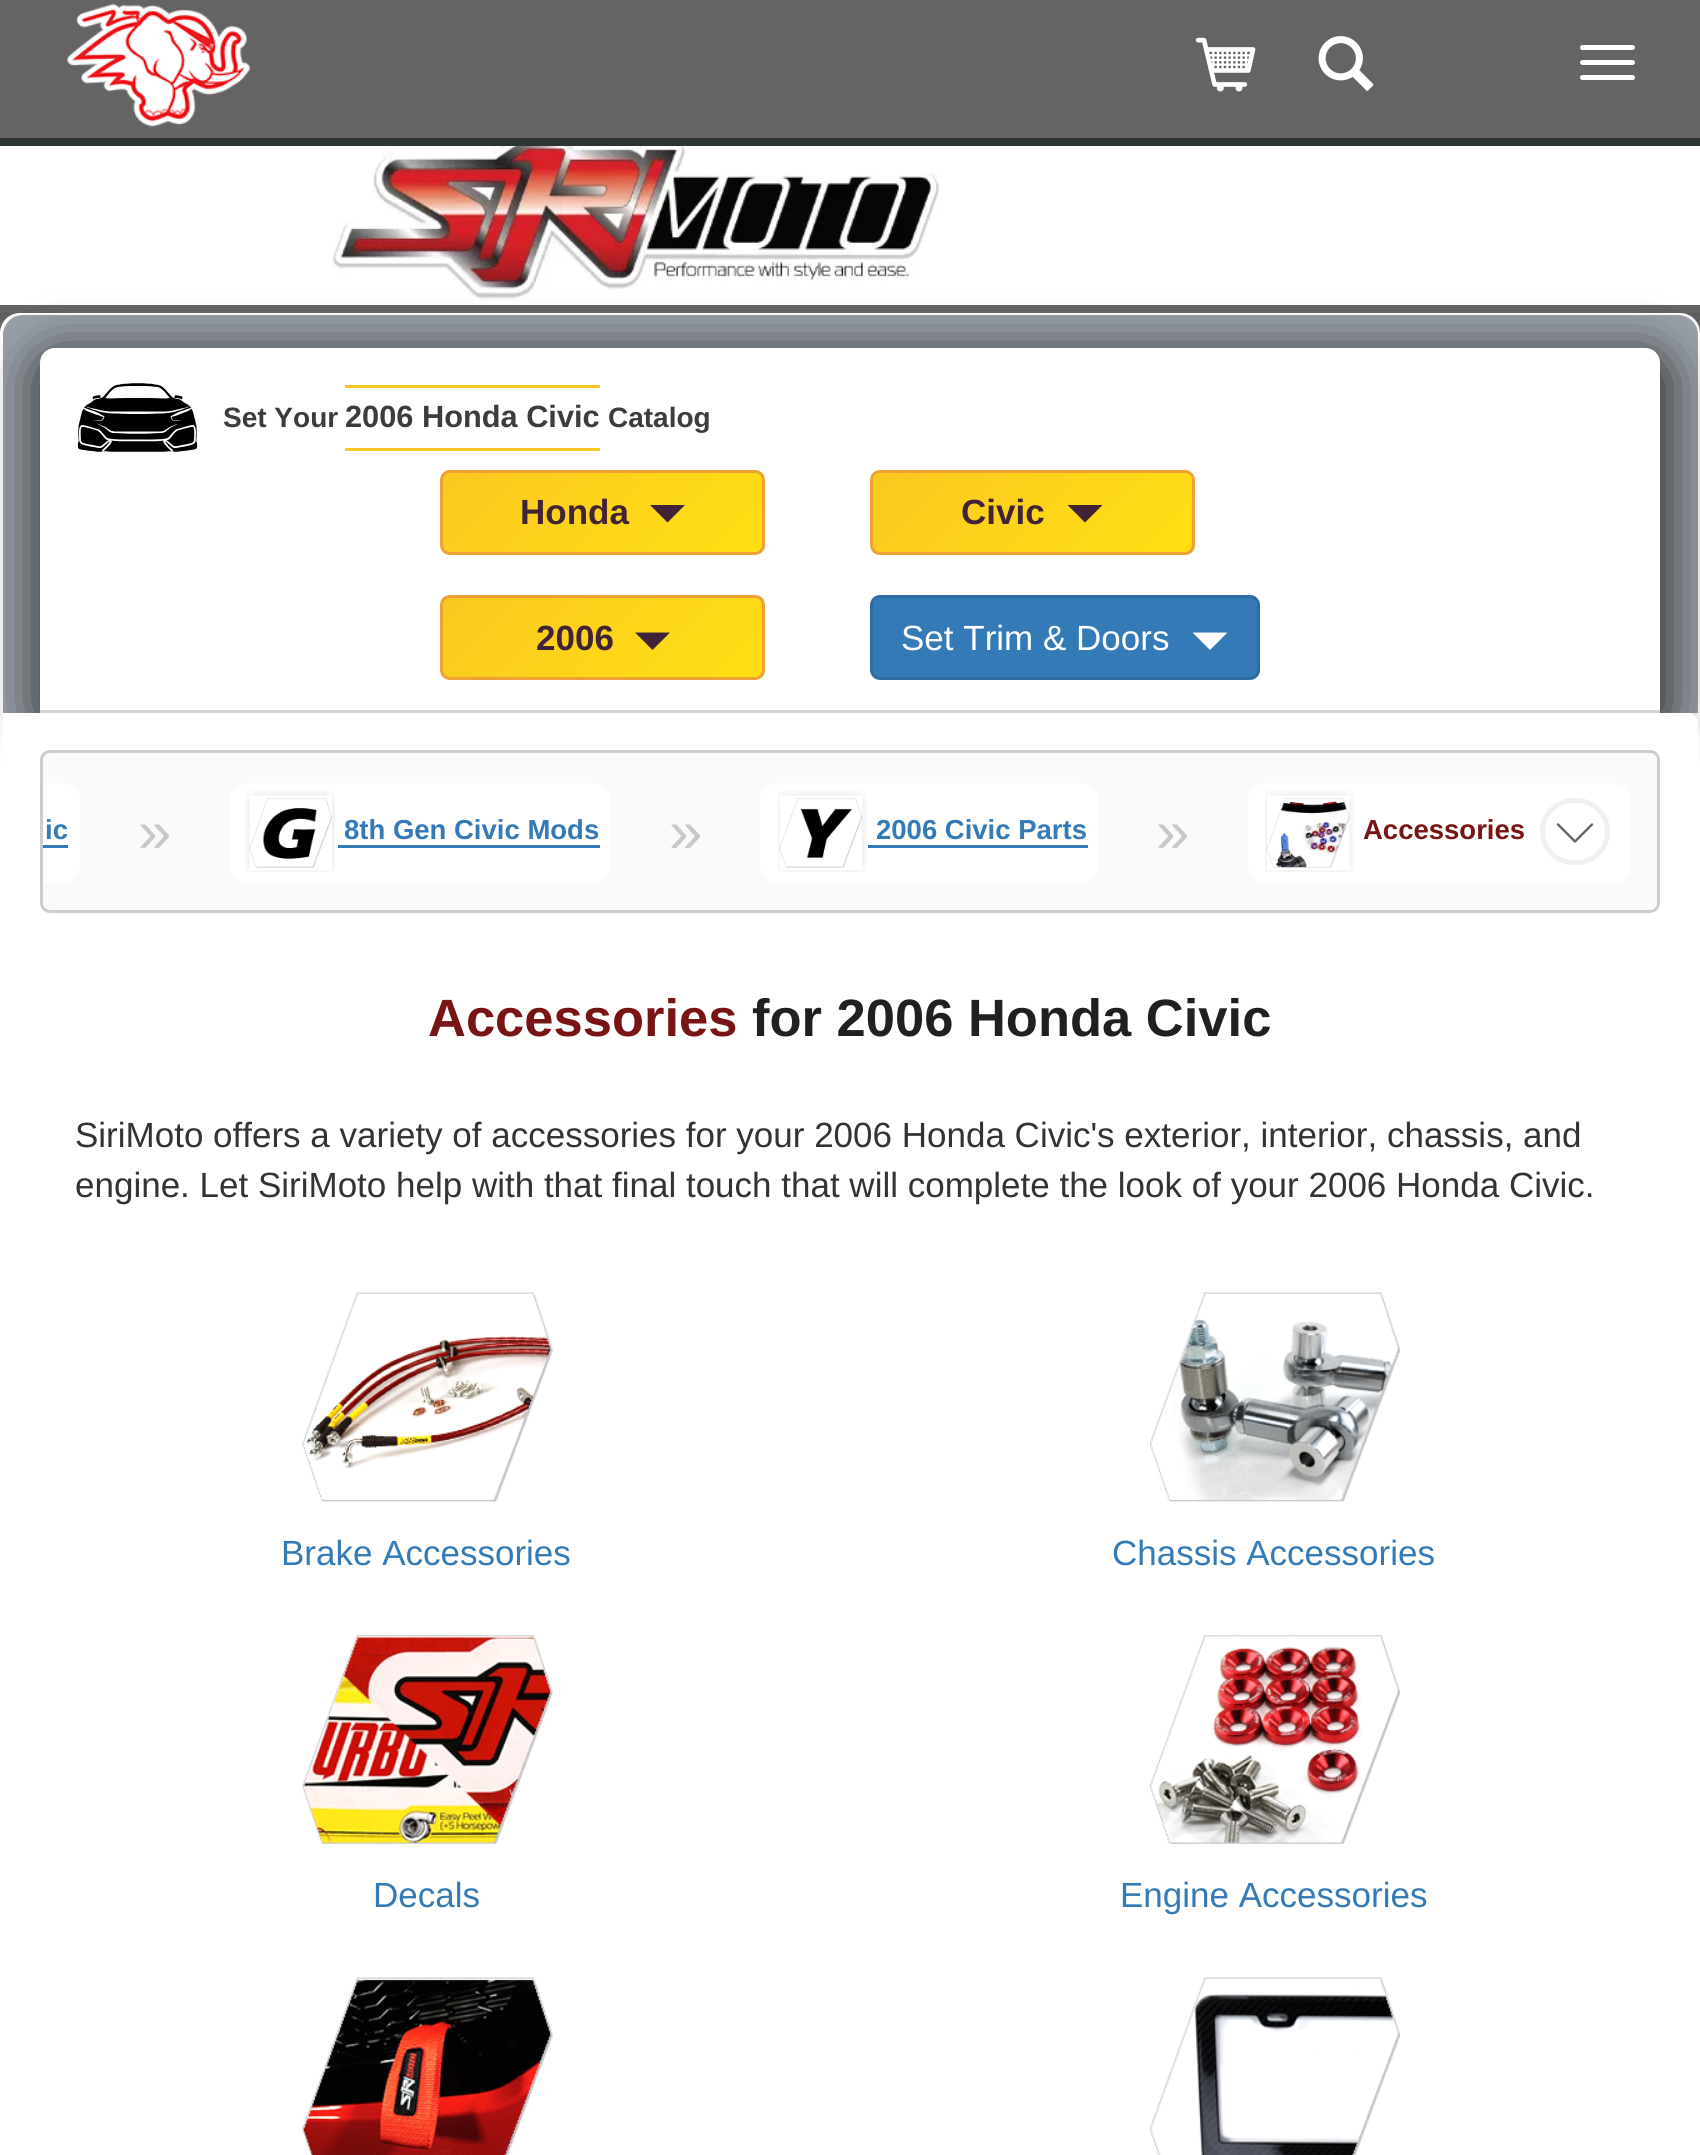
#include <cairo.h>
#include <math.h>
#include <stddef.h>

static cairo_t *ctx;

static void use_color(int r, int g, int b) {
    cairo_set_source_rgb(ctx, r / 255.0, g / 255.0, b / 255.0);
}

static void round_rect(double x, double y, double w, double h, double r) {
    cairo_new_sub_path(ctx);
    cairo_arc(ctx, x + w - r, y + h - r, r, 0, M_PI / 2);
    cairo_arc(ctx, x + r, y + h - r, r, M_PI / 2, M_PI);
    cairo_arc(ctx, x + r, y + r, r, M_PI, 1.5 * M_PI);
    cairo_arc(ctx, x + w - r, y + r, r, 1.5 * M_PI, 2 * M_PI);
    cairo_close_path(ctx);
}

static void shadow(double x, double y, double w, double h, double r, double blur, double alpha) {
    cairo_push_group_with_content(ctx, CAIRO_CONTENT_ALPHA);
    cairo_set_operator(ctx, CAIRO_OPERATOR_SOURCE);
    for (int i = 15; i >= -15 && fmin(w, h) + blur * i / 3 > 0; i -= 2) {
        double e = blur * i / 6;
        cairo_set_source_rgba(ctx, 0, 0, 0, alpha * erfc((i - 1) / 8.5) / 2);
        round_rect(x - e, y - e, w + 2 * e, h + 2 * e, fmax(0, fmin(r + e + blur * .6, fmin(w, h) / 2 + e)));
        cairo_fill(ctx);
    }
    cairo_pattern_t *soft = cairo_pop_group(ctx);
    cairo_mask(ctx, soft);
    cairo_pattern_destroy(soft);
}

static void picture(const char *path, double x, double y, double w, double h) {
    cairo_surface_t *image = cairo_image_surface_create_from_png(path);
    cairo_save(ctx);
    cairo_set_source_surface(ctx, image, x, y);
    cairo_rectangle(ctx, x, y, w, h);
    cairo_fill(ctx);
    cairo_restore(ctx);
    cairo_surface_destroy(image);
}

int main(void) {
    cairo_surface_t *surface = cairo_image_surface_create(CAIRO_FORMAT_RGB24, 1700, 2155);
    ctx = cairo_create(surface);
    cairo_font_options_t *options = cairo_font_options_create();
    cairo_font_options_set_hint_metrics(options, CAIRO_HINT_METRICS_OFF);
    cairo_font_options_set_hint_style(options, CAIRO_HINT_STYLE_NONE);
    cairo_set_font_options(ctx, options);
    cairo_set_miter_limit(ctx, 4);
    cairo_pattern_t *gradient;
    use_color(255, 255, 255);
    cairo_paint(ctx);
    picture("img1.png", 0, 313, 1700, 20);
    use_color(100, 100, 100);
    cairo_rectangle(ctx, 0, 0, 1700, 138);
    cairo_fill(ctx);
    use_color(45, 52, 52);
    cairo_rectangle(ctx, 0, 138, 1700, 8);
    cairo_fill(ctx);
    picture("img2.png", 67, 3, 184, 124);
    picture("img3.png", 1195, 37, 61, 55);
    picture("img4.png", 1318, 36, 56, 55);
    use_color(255, 255, 255);
    round_rect(1580, 45, 55, 5, 2.5);
    cairo_fill(ctx);
    round_rect(1580, 60, 55, 5, 2.5);
    cairo_fill(ctx);
    round_rect(1580, 75, 55, 5, 2.5);
    cairo_fill(ctx);
    use_color(100, 100, 100);
    cairo_rectangle(ctx, 0, 305, 1700, 8);
    cairo_fill(ctx);
    picture("img5.png", 332, 146, 608, 153);
    use_color(255, 255, 255);
    round_rect(1.5, 314.5, 1697, 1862, 18.5);
    cairo_fill_preserve(ctx);
    cairo_set_line_width(ctx, 3);
    cairo_stroke(ctx);
    use_color(153, 160, 167);
    cairo_new_path(ctx);
    cairo_move_to(ctx, 23, 315);
    cairo_line_to(ctx, 1678, 315);
    cairo_curve_to(ctx, 1689, 315, 1698, 324, 1698, 335);
    cairo_line_to(ctx, 1698, 713);
    cairo_line_to(ctx, 3, 713);
    cairo_line_to(ctx, 3, 335);
    cairo_curve_to(ctx, 3, 324, 12, 315, 23, 315);
    cairo_close_path(ctx);
    cairo_fill(ctx);
    use_color(0, 0, 0);
    shadow(35, 353, 1635, 380, 23, 25, 0.69);
    use_color(255, 255, 255);
    cairo_new_path(ctx);
    cairo_move_to(ctx, 55, 348);
    cairo_line_to(ctx, 1645, 348);
    cairo_curve_to(ctx, 1653.5, 348, 1660, 354.5, 1660, 363);
    cairo_line_to(ctx, 1660, 713);
    cairo_line_to(ctx, 40, 713);
    cairo_line_to(ctx, 40, 363);
    cairo_curve_to(ctx, 40, 354.5, 46.5, 348, 55, 348);
    cairo_close_path(ctx);
    cairo_fill(ctx);
    use_color(211, 211, 211);
    cairo_rectangle(ctx, 40, 710, 1620, 3);
    cairo_fill(ctx);
    picture("img6.png", 77, 383, 121, 69);
    cairo_select_font_face(ctx, "Liberation Sans", CAIRO_FONT_SLANT_NORMAL, CAIRO_FONT_WEIGHT_BOLD);
    cairo_set_font_size(ctx, 28);
    use_color(60, 60, 60);
    cairo_move_to(ctx, 223, 427);
    cairo_show_text(ctx, "Set Your");
    cairo_set_font_size(ctx, 30.75);
    cairo_move_to(ctx, 345, 427);
    cairo_show_text(ctx, "2006 Honda Civic");
    use_color(250, 200, 32);
    cairo_rectangle(ctx, 345, 385, 255, 3);
    cairo_fill(ctx);
    cairo_rectangle(ctx, 345, 448, 255, 3);
    cairo_fill(ctx);
    cairo_set_font_size(ctx, 28);
    use_color(60, 60, 60);
    cairo_move_to(ctx, 608, 427);
    cairo_show_text(ctx, "Catalog");
    cairo_save(ctx);
    round_rect(440, 470, 325, 85, 10);
    cairo_clip(ctx);
    gradient = cairo_pattern_create_linear(503, 413, 703, 613);
    cairo_pattern_add_color_stop_rgba(gradient, 0, 0.98, 0.784, 0.125, 1);
    cairo_pattern_add_color_stop_rgba(gradient, 1, 1, 0.878, 0.075, 1);
    cairo_set_source(ctx, gradient);
    cairo_pattern_destroy(gradient);
    cairo_rectangle(ctx, 443, 473, 320, 80);
    cairo_fill(ctx);
    cairo_restore(ctx);
    round_rect(441.5, 471.5, 322, 82, 8.5);
    use_color(238, 162, 54);
    cairo_stroke(ctx);
    cairo_set_font_size(ctx, 35);
    use_color(65, 35, 56);
    cairo_move_to(ctx, 520, 524);
    cairo_show_text(ctx, "Honda");
    cairo_new_path(ctx);
    cairo_move_to(ctx, 650, 505);
    cairo_line_to(ctx, 685, 505);
    cairo_line_to(ctx, 667.5, 522.5);
    cairo_close_path(ctx);
    cairo_fill(ctx);
    cairo_save(ctx);
    round_rect(870, 470, 325, 85, 10);
    cairo_clip(ctx);
    gradient = cairo_pattern_create_linear(933, 413, 1133, 613);
    cairo_pattern_add_color_stop_rgba(gradient, 0, 0.98, 0.784, 0.125, 1);
    cairo_pattern_add_color_stop_rgba(gradient, 1, 1, 0.878, 0.075, 1);
    cairo_set_source(ctx, gradient);
    cairo_pattern_destroy(gradient);
    cairo_rectangle(ctx, 873, 473, 320, 80);
    cairo_fill(ctx);
    cairo_restore(ctx);
    round_rect(871.5, 471.5, 322, 82, 8.5);
    use_color(238, 162, 54);
    cairo_stroke(ctx);
    use_color(65, 35, 56);
    cairo_move_to(ctx, 961, 524);
    cairo_show_text(ctx, "Civic");
    cairo_new_path(ctx);
    cairo_move_to(ctx, 1067.5, 505);
    cairo_line_to(ctx, 1102.5, 505);
    cairo_line_to(ctx, 1085, 522.5);
    cairo_close_path(ctx);
    cairo_fill(ctx);
    cairo_save(ctx);
    round_rect(440, 595, 325, 85, 10);
    cairo_clip(ctx);
    gradient = cairo_pattern_create_linear(503, 538, 703, 738);
    cairo_pattern_add_color_stop_rgba(gradient, 0, 0.98, 0.784, 0.125, 1);
    cairo_pattern_add_color_stop_rgba(gradient, 1, 1, 0.878, 0.075, 1);
    cairo_set_source(ctx, gradient);
    cairo_pattern_destroy(gradient);
    cairo_rectangle(ctx, 443, 598, 320, 80);
    cairo_fill(ctx);
    cairo_restore(ctx);
    round_rect(441.5, 596.5, 322, 82, 8.5);
    use_color(238, 162, 54);
    cairo_stroke(ctx);
    use_color(65, 35, 56);
    cairo_move_to(ctx, 536, 650);
    cairo_show_text(ctx, "2006");
    cairo_new_path(ctx);
    cairo_move_to(ctx, 635, 632.5);
    cairo_line_to(ctx, 670, 632.5);
    cairo_line_to(ctx, 652.5, 650);
    cairo_close_path(ctx);
    cairo_fill(ctx);
    use_color(51, 122, 183);
    round_rect(871.5, 596.5, 387, 82, 8.5);
    cairo_fill_preserve(ctx);
    use_color(46, 109, 164);
    cairo_stroke(ctx);
    cairo_select_font_face(ctx, "Liberation Sans", CAIRO_FONT_SLANT_NORMAL, CAIRO_FONT_WEIGHT_NORMAL);
    use_color(255, 255, 255);
    cairo_move_to(ctx, 901, 650);
    cairo_show_text(ctx, "Set Trim & Doors");
    cairo_new_path(ctx);
    cairo_move_to(ctx, 1192.5, 632.5);
    cairo_line_to(ctx, 1227.5, 632.5);
    cairo_line_to(ctx, 1210, 650);
    cairo_close_path(ctx);
    cairo_fill(ctx);
    cairo_new_path(ctx);
    cairo_move_to(ctx, 3, 713);
    cairo_line_to(ctx, 1688, 713);
    cairo_curve_to(ctx, 1693.5, 713, 1698, 717.5, 1698, 723);
    cairo_line_to(ctx, 1698, 2155);
    cairo_curve_to(ctx, 1698, 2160.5, 1693.5, 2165, 1688, 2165);
    cairo_line_to(ctx, 13, 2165);
    cairo_curve_to(ctx, 7.5, 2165, 3, 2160.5, 3, 2155);
    cairo_close_path(ctx);
    cairo_fill(ctx);
    use_color(250, 250, 250);
    round_rect(41.5, 751.5, 1617, 160, 8.5);
    cairo_fill_preserve(ctx);
    use_color(205, 205, 205);
    cairo_stroke(ctx);
    use_color(255, 255, 255);
    cairo_new_path(ctx);
    cairo_move_to(ctx, 43, 783);
    cairo_line_to(ctx, 62, 783);
    cairo_curve_to(ctx, 72, 783, 80, 791, 80, 801);
    cairo_line_to(ctx, 80, 865);
    cairo_curve_to(ctx, 80, 875, 72, 883, 62, 883);
    cairo_line_to(ctx, 43, 883);
    cairo_close_path(ctx);
    cairo_fill(ctx);
    cairo_select_font_face(ctx, "Liberation Sans", CAIRO_FONT_SLANT_NORMAL, CAIRO_FONT_WEIGHT_BOLD);
    cairo_set_font_size(ctx, 27.5);
    use_color(51, 122, 183);
    cairo_move_to(ctx, 45, 839);
    cairo_show_text(ctx, "ic");
    cairo_rectangle(ctx, 43, 845, 25, 3);
    cairo_fill(ctx);
    cairo_select_font_face(ctx, "Liberation Sans", CAIRO_FONT_SLANT_NORMAL, CAIRO_FONT_WEIGHT_NORMAL);
    cairo_set_font_size(ctx, 60);
    use_color(200, 200, 200);
    cairo_move_to(ctx, 138, 852);
    cairo_show_text(ctx, "»");
    use_color(255, 255, 255);
    round_rect(230, 783, 380, 100, 18);
    cairo_fill(ctx);
    picture("img7.png", 245, 790, 90, 82);
    cairo_select_font_face(ctx, "Liberation Sans", CAIRO_FONT_SLANT_NORMAL, CAIRO_FONT_WEIGHT_BOLD);
    cairo_set_font_size(ctx, 27.5);
    use_color(51, 122, 183);
    cairo_move_to(ctx, 344, 839);
    cairo_show_text(ctx, "8th Gen Civic Mods");
    cairo_rectangle(ctx, 338, 845, 262, 3);
    cairo_fill(ctx);
    cairo_select_font_face(ctx, "Liberation Sans", CAIRO_FONT_SLANT_NORMAL, CAIRO_FONT_WEIGHT_NORMAL);
    cairo_set_font_size(ctx, 60);
    use_color(200, 200, 200);
    cairo_move_to(ctx, 669, 852);
    cairo_show_text(ctx, "»");
    use_color(255, 255, 255);
    round_rect(760, 783, 338, 100, 18);
    cairo_fill(ctx);
    picture("img8.png", 778, 790, 89, 82);
    cairo_select_font_face(ctx, "Liberation Sans", CAIRO_FONT_SLANT_NORMAL, CAIRO_FONT_WEIGHT_BOLD);
    cairo_set_font_size(ctx, 27.5);
    use_color(51, 122, 183);
    cairo_move_to(ctx, 876, 839);
    cairo_show_text(ctx, "2006 Civic Parts");
    cairo_rectangle(ctx, 868, 845, 220, 3);
    cairo_fill(ctx);
    cairo_select_font_face(ctx, "Liberation Sans", CAIRO_FONT_SLANT_NORMAL, CAIRO_FONT_WEIGHT_NORMAL);
    cairo_set_font_size(ctx, 60);
    use_color(200, 200, 200);
    cairo_move_to(ctx, 1156, 852);
    cairo_show_text(ctx, "»");
    use_color(255, 255, 255);
    round_rect(1248, 783, 382, 100, 18);
    cairo_fill(ctx);
    picture("img9.png", 1265, 790, 90, 82);
    cairo_select_font_face(ctx, "Liberation Sans", CAIRO_FONT_SLANT_NORMAL, CAIRO_FONT_WEIGHT_BOLD);
    cairo_set_font_size(ctx, 27.5);
    use_color(120, 20, 20);
    cairo_move_to(ctx, 1363, 839);
    cairo_show_text(ctx, "Accessories");
    round_rect(1542.5, 800.5, 65, 62, 31);
    use_color(240, 240, 240);
    cairo_set_line_width(ctx, 5);
    cairo_stroke(ctx);
    cairo_new_path(ctx);
    cairo_move_to(ctx, 1592, 824.5);
    cairo_line_to(ctx, 1575, 841.5);
    cairo_line_to(ctx, 1558, 824.5);
    use_color(100, 100, 100);
    cairo_set_line_width(ctx, 2.4);
    cairo_set_line_cap(ctx, CAIRO_LINE_CAP_ROUND);
    cairo_set_line_join(ctx, CAIRO_LINE_JOIN_ROUND);
    cairo_stroke(ctx);
    cairo_set_font_size(ctx, 52.5);
    use_color(120, 20, 20);
    cairo_move_to(ctx, 428, 1036);
    cairo_show_text(ctx, "Accessories");
    use_color(32, 32, 32);
    cairo_move_to(ctx, 752, 1036);
    cairo_show_text(ctx, "for 2006 Honda Civic");
    cairo_select_font_face(ctx, "Liberation Sans", CAIRO_FONT_SLANT_NORMAL, CAIRO_FONT_WEIGHT_NORMAL);
    cairo_set_font_size(ctx, 35);
    use_color(51, 51, 51);
    cairo_move_to(ctx, 75, 1147);
    cairo_show_text(ctx, "SiriMoto offers a variety of accessories for your 2006 Honda Civic's exterior, interior, chassis, and");
    cairo_move_to(ctx, 75, 1197);
    cairo_show_text(ctx, "engine. Let SiriMoto help with that final touch that will complete the look of your 2006 Honda Civic.");
    picture("img10.png", 302, 1292, 251, 210);
    use_color(51, 122, 183);
    cairo_move_to(ctx, 281, 1565);
    cairo_show_text(ctx, "Brake Accessories");
    picture("img11.png", 1150, 1292, 250, 210);
    cairo_move_to(ctx, 1112, 1565);
    cairo_show_text(ctx, "Chassis Accessories");
    picture("img12.png", 302, 1635, 251, 209);
    cairo_move_to(ctx, 373, 1907);
    cairo_show_text(ctx, "Decals");
    picture("img13.png", 1150, 1635, 250, 209);
    cairo_move_to(ctx, 1120, 1907);
    cairo_show_text(ctx, "Engine Accessories");
    picture("img14.png", 302, 1977, 251, 178);
    picture("img15.png", 1150, 1977, 250, 178);
    cairo_surface_write_to_png(surface, "result.png");
    cairo_font_options_destroy(options);
    cairo_destroy(ctx);
    cairo_surface_destroy(surface);
    return 0;
}
